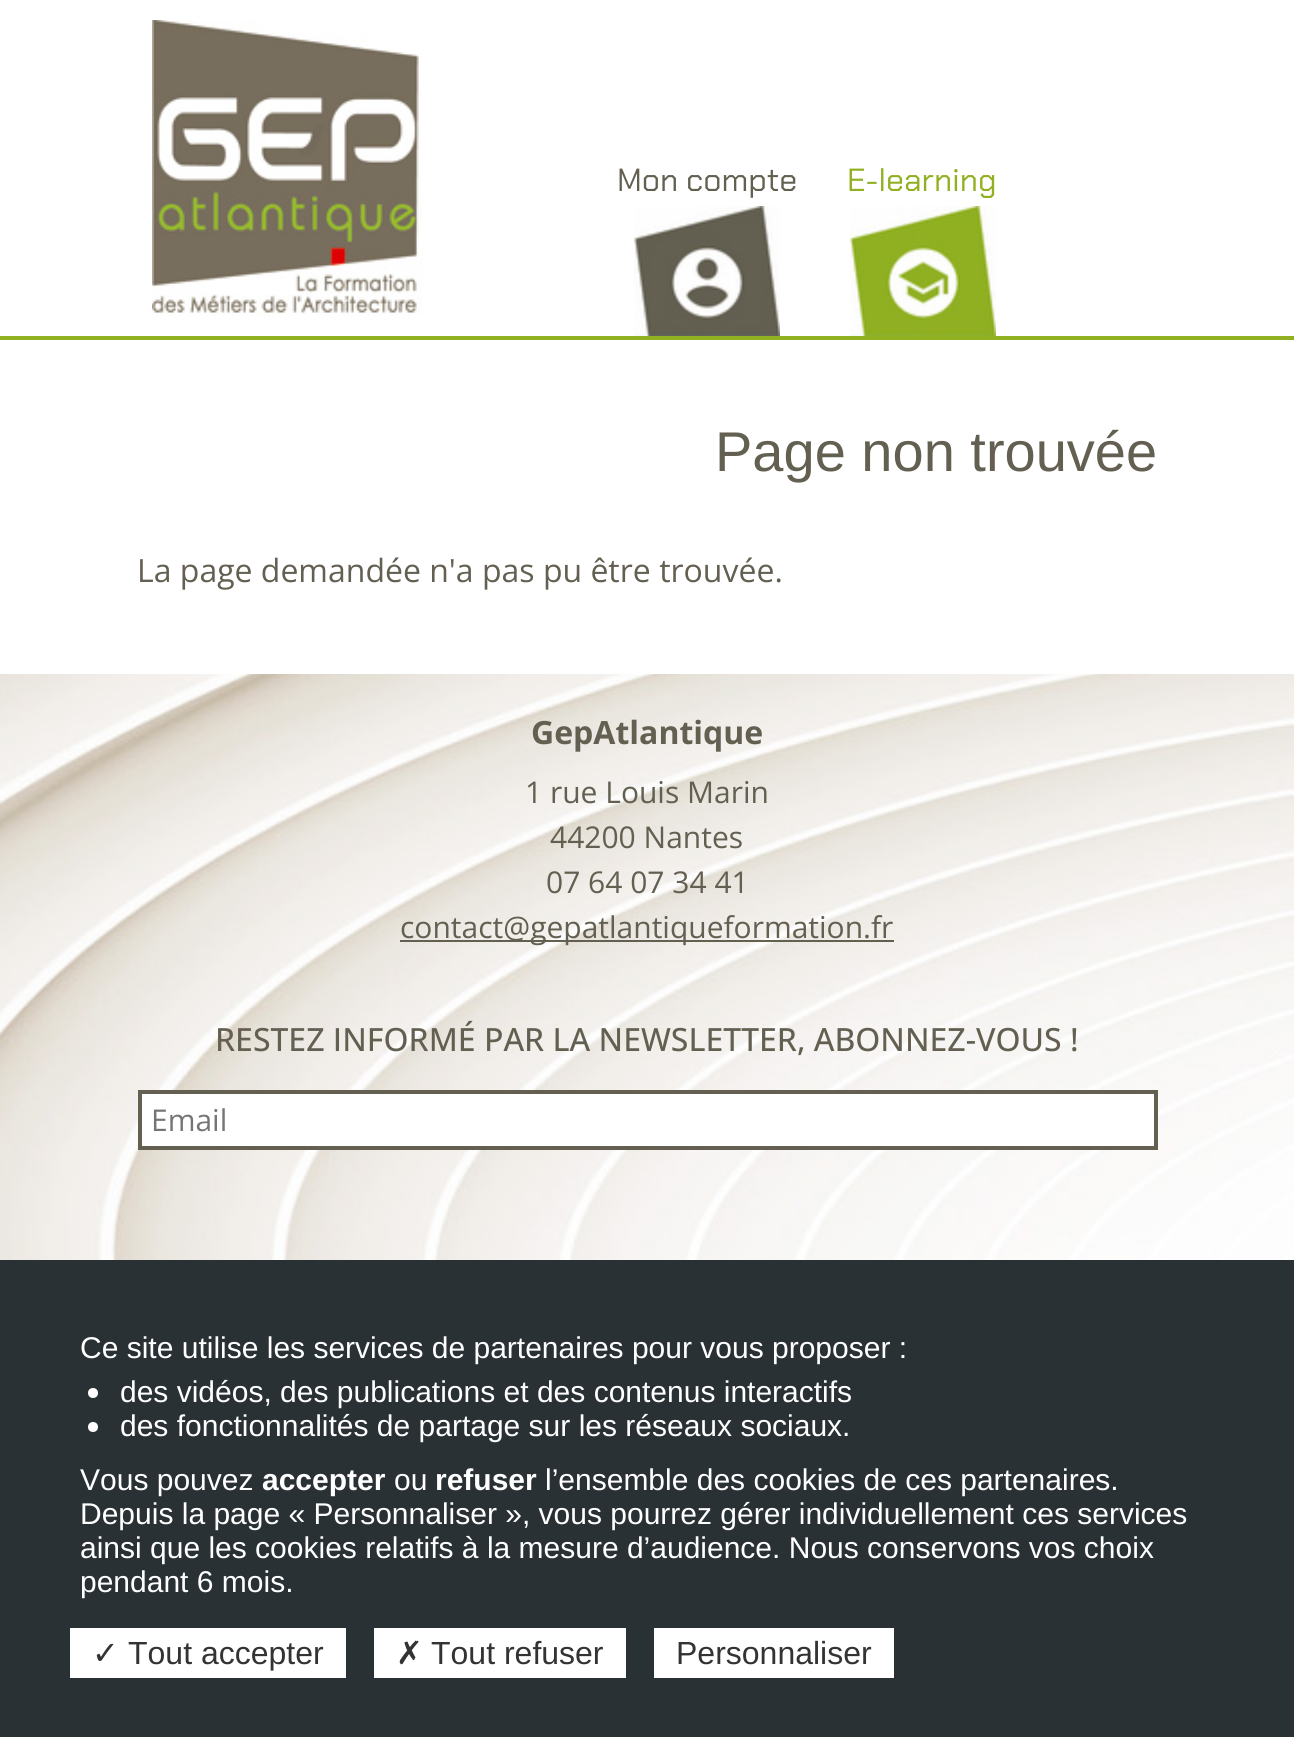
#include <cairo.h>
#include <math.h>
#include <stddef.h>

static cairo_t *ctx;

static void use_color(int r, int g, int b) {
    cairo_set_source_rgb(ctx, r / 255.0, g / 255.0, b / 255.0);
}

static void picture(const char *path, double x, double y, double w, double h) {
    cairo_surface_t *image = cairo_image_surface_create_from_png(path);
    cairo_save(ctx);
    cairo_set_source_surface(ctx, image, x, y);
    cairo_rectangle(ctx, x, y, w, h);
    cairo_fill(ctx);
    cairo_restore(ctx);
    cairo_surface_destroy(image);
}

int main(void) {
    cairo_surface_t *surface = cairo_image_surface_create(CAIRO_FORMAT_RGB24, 1294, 1737);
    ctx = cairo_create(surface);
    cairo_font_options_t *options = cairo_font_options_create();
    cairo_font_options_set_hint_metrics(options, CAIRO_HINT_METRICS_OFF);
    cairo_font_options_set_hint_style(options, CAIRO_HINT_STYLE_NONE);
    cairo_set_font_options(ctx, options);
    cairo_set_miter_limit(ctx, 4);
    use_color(255, 255, 255);
    cairo_paint(ctx);
    use_color(144, 176, 34);
    cairo_rectangle(ctx, 0, 336, 1294, 4);
    cairo_fill(ctx);
    picture("img1.png", 152, 20, 270, 296);
    cairo_select_font_face(ctx, "Chakra Petch", CAIRO_FONT_SLANT_NORMAL, CAIRO_FONT_WEIGHT_NORMAL);
    cairo_set_font_size(ctx, 32);
    use_color(99, 95, 81);
    cairo_move_to(ctx, 617, 191);
    cairo_show_text(ctx, "Mon compte");
    picture("img2.png", 634, 206, 146, 130);
    use_color(144, 176, 34);
    cairo_move_to(ctx, 847, 191);
    cairo_show_text(ctx, "E-learning");
    picture("img3.png", 850, 206, 146, 130);
    cairo_select_font_face(ctx, "Liberation Sans", CAIRO_FONT_SLANT_NORMAL, CAIRO_FONT_WEIGHT_NORMAL);
    cairo_set_font_size(ctx, 56);
    use_color(99, 95, 81);
    cairo_move_to(ctx, 715, 471);
    cairo_show_text(ctx, "Page non trouvée");
    cairo_select_font_face(ctx, "Open Sans", CAIRO_FONT_SLANT_NORMAL, CAIRO_FONT_WEIGHT_NORMAL);
    cairo_set_font_size(ctx, 32);
    cairo_move_to(ctx, 137, 582);
    cairo_show_text(ctx, "La page demandée n'a pas pu être trouvée.");
    picture("img4.png", 0, 674, 1294, 586);
    cairo_select_font_face(ctx, "Open Sans", CAIRO_FONT_SLANT_NORMAL, CAIRO_FONT_WEIGHT_BOLD);
    cairo_move_to(ctx, 531, 744);
    cairo_show_text(ctx, "GepAtlantique");
    cairo_select_font_face(ctx, "Open Sans", CAIRO_FONT_SLANT_NORMAL, CAIRO_FONT_WEIGHT_NORMAL);
    cairo_set_font_size(ctx, 30);
    cairo_move_to(ctx, 525, 803);
    cairo_show_text(ctx, "1 rue Louis Marin");
    cairo_move_to(ctx, 550, 848);
    cairo_show_text(ctx, "44200 Nantes");
    cairo_move_to(ctx, 546, 893);
    cairo_show_text(ctx, "07 64 07 34 41");
    cairo_rectangle(ctx, 400, 940, 494, 2);
    cairo_fill(ctx);
    cairo_move_to(ctx, 400, 938);
    cairo_show_text(ctx, "contact@gepatlantiqueformation.fr");
    cairo_select_font_face(ctx, "Open Sans Medium", CAIRO_FONT_SLANT_NORMAL, CAIRO_FONT_WEIGHT_NORMAL);
    cairo_set_font_size(ctx, 32);
    cairo_move_to(ctx, 215, 1051);
    cairo_show_text(ctx, "RESTEZ INFORMÉ PAR LA NEWSLETTER, ABONNEZ-VOUS !");
    use_color(255, 255, 255);
    cairo_rectangle(ctx, 140, 1092, 1016, 56);
    cairo_fill_preserve(ctx);
    use_color(99, 95, 81);
    cairo_set_line_width(ctx, 4);
    cairo_stroke(ctx);
    cairo_select_font_face(ctx, "Open Sans", CAIRO_FONT_SLANT_NORMAL, CAIRO_FONT_WEIGHT_NORMAL);
    cairo_set_font_size(ctx, 30);
    use_color(117, 117, 117);
    cairo_move_to(ctx, 151, 1131);
    cairo_show_text(ctx, "Email");
    use_color(42, 49, 53);
    cairo_rectangle(ctx, 0, 1260, 1294, 477);
    cairo_fill(ctx);
    cairo_select_font_face(ctx, "Liberation Sans", CAIRO_FONT_SLANT_NORMAL, CAIRO_FONT_WEIGHT_NORMAL);
    use_color(255, 255, 255);
    cairo_move_to(ctx, 80, 1358);
    cairo_show_text(ctx, "Ce site utilise les services de partenaires pour vous proposer :");
    cairo_new_path(ctx);
    cairo_arc(ctx, 93, 1393, 5, 0, 2 * M_PI);
    cairo_fill(ctx);
    cairo_move_to(ctx, 120, 1402);
    cairo_show_text(ctx, "des vidéos, des publications et des contenus interactifs");
    cairo_new_path(ctx);
    cairo_arc(ctx, 93, 1427, 5, 0, 2 * M_PI);
    cairo_fill(ctx);
    cairo_move_to(ctx, 120, 1436);
    cairo_show_text(ctx, "des fonctionnalités de partage sur les réseaux sociaux.");
    cairo_move_to(ctx, 80, 1490);
    cairo_show_text(ctx, "Vous pouvez");
    cairo_select_font_face(ctx, "Liberation Sans", CAIRO_FONT_SLANT_NORMAL, CAIRO_FONT_WEIGHT_BOLD);
    cairo_move_to(ctx, 262, 1490);
    cairo_show_text(ctx, "accepter");
    cairo_select_font_face(ctx, "Liberation Sans", CAIRO_FONT_SLANT_NORMAL, CAIRO_FONT_WEIGHT_NORMAL);
    cairo_move_to(ctx, 394, 1490);
    cairo_show_text(ctx, "ou");
    cairo_select_font_face(ctx, "Liberation Sans", CAIRO_FONT_SLANT_NORMAL, CAIRO_FONT_WEIGHT_BOLD);
    cairo_move_to(ctx, 435, 1490);
    cairo_show_text(ctx, "refuser");
    cairo_select_font_face(ctx, "Liberation Sans", CAIRO_FONT_SLANT_NORMAL, CAIRO_FONT_WEIGHT_NORMAL);
    cairo_move_to(ctx, 545, 1490);
    cairo_show_text(ctx, "l’ensemble des cookies de ces partenaires.");
    cairo_move_to(ctx, 80, 1524);
    cairo_show_text(ctx, "Depuis la page « Personnaliser », vous pourrez gérer individuellement ces services");
    cairo_move_to(ctx, 80, 1558);
    cairo_show_text(ctx, "ainsi que les cookies relatifs à la mesure d’audience. Nous conservons vos choix");
    cairo_move_to(ctx, 80, 1592);
    cairo_show_text(ctx, "pendant 6 mois.");
    cairo_rectangle(ctx, 70, 1628, 276, 50);
    cairo_fill(ctx);
    cairo_select_font_face(ctx, "DejaVu Sans", CAIRO_FONT_SLANT_NORMAL, CAIRO_FONT_WEIGHT_NORMAL);
    cairo_set_font_size(ctx, 32);
    use_color(51, 51, 51);
    cairo_move_to(ctx, 92, 1664);
    cairo_show_text(ctx, "✓");
    cairo_select_font_face(ctx, "Liberation Sans", CAIRO_FONT_SLANT_NORMAL, CAIRO_FONT_WEIGHT_NORMAL);
    cairo_move_to(ctx, 128, 1664);
    cairo_show_text(ctx, "Tout accepter");
    use_color(255, 255, 255);
    cairo_rectangle(ctx, 374, 1628, 252, 50);
    cairo_fill(ctx);
    cairo_select_font_face(ctx, "DejaVu Sans", CAIRO_FONT_SLANT_NORMAL, CAIRO_FONT_WEIGHT_NORMAL);
    use_color(51, 51, 51);
    cairo_move_to(ctx, 396, 1664);
    cairo_show_text(ctx, "✗");
    cairo_select_font_face(ctx, "Liberation Sans", CAIRO_FONT_SLANT_NORMAL, CAIRO_FONT_WEIGHT_NORMAL);
    cairo_move_to(ctx, 431, 1664);
    cairo_show_text(ctx, "Tout refuser");
    use_color(255, 255, 255);
    cairo_rectangle(ctx, 654, 1628, 240, 50);
    cairo_fill(ctx);
    use_color(51, 51, 51);
    cairo_move_to(ctx, 676, 1664);
    cairo_show_text(ctx, "Personnaliser");
    cairo_surface_write_to_png(surface, "result.png");
    cairo_font_options_destroy(options);
    cairo_destroy(ctx);
    cairo_surface_destroy(surface);
    return 0;
}
